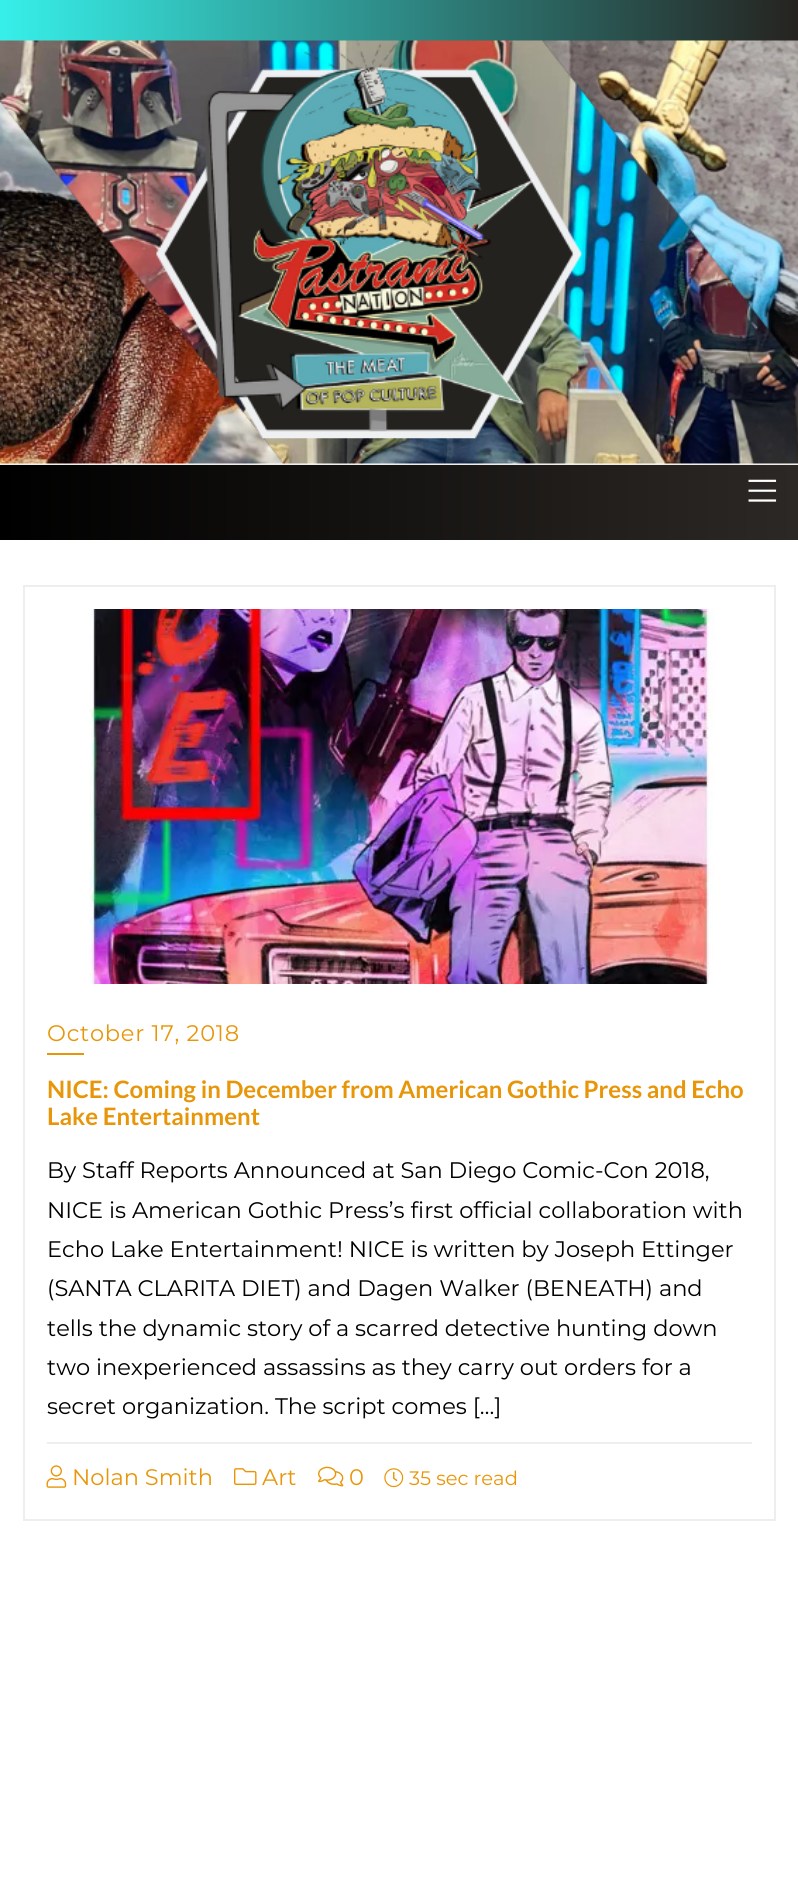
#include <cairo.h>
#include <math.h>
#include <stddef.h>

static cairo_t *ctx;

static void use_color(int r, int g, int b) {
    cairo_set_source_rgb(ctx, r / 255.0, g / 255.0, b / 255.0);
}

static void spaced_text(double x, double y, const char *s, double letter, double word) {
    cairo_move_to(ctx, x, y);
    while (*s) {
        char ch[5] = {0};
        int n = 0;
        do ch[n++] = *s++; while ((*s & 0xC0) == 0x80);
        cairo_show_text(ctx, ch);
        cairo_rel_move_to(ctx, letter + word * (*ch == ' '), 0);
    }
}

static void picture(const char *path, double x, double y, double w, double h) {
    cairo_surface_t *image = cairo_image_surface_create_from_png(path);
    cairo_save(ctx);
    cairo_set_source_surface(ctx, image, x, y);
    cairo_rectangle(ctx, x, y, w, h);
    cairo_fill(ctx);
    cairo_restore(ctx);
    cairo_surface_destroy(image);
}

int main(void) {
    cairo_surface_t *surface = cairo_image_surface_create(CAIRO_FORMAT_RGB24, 798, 1891);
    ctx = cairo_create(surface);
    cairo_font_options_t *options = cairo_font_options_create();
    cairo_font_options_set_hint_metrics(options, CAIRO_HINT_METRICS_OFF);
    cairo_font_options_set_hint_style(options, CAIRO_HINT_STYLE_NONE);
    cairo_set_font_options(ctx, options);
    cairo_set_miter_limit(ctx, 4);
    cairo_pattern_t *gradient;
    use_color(255, 255, 255);
    cairo_paint(ctx);
    gradient = cairo_pattern_create_linear(0, 20, 798, 19);
    cairo_pattern_add_color_stop_rgba(gradient, 0, 0.216, 0.937, 0.914, 1);
    cairo_pattern_add_color_stop_rgba(gradient, 1, 0.149, 0.137, 0.125, 1);
    cairo_set_source(ctx, gradient);
    cairo_pattern_destroy(gradient);
    cairo_rectangle(ctx, 0, 0, 798, 41);
    cairo_fill(ctx);
    picture("img1.png", 0, 40, 798, 424);
    use_color(238, 238, 238);
    cairo_rectangle(ctx, 0, 464, 798, 1);
    cairo_fill(ctx);
    gradient = cairo_pattern_create_linear(0, 503, 798, 503);
    cairo_pattern_add_color_stop_rgba(gradient, 0, 0, 0, 0, 1);
    cairo_pattern_add_color_stop_rgba(gradient, 1, 0.173, 0.157, 0.145, 1);
    cairo_set_source(ctx, gradient);
    cairo_pattern_destroy(gradient);
    cairo_rectangle(ctx, 0, 465, 798, 75);
    cairo_fill(ctx);
    picture("img2.png", 748, 479, 29, 23);
    cairo_rectangle(ctx, 24, 586, 751, 934);
    use_color(238, 238, 238);
    cairo_stroke(ctx);
    picture("img3.png", 89, 609, 625, 375);
    cairo_select_font_face(ctx, "Montserrat", CAIRO_FONT_SLANT_NORMAL, CAIRO_FONT_WEIGHT_NORMAL);
    cairo_set_font_size(ctx, 22.5);
    use_color(232, 150, 9);
    spaced_text(47, 1041, "October 17, 2018", 0.75, 0);
    cairo_rectangle(ctx, 47, 1053, 37, 2);
    cairo_fill(ctx);
    cairo_select_font_face(ctx, "Lato", CAIRO_FONT_SLANT_NORMAL, CAIRO_FONT_WEIGHT_BOLD);
    cairo_set_font_size(ctx, 24);
    cairo_move_to(ctx, 47, 1098);
    cairo_show_text(ctx, "NICE: Coming in December from American Gothic Press and Echo");
    cairo_move_to(ctx, 47, 1125);
    cairo_show_text(ctx, "Lake Entertainment");
    cairo_select_font_face(ctx, "Montserrat", CAIRO_FONT_SLANT_NORMAL, CAIRO_FONT_WEIGHT_NORMAL);
    cairo_set_font_size(ctx, 22.5);
    use_color(0, 0, 0);
    cairo_move_to(ctx, 47, 1178);
    cairo_show_text(ctx, "By Staff Reports Announced at San Diego Comic-Con 2018,");
    cairo_move_to(ctx, 47, 1218);
    cairo_show_text(ctx, "NICE is American Gothic Press’s first official collaboration with");
    cairo_move_to(ctx, 47, 1257);
    cairo_show_text(ctx, "Echo Lake Entertainment! NICE is written by Joseph Ettinger");
    cairo_move_to(ctx, 47, 1296);
    cairo_show_text(ctx, "(SANTA CLARITA DIET) and Dagen Walker (BENEATH) and");
    cairo_move_to(ctx, 47, 1336);
    cairo_show_text(ctx, "tells the dynamic story of a scarred detective hunting down");
    cairo_move_to(ctx, 47, 1375);
    cairo_show_text(ctx, "two inexperienced assassins as they carry out orders for a");
    cairo_move_to(ctx, 47, 1414);
    cairo_show_text(ctx, "secret organization. The script comes […]");
    use_color(238, 238, 238);
    cairo_rectangle(ctx, 47, 1442, 705, 2);
    cairo_fill(ctx);
    picture("img4.png", 46, 1465, 21, 23);
    use_color(232, 150, 9);
    cairo_move_to(ctx, 72, 1485);
    cairo_show_text(ctx, "Nolan Smith");
    picture("img5.png", 234, 1468, 23, 17);
    cairo_move_to(ctx, 262, 1485);
    cairo_show_text(ctx, "Art");
    picture("img6.png", 318, 1466, 26, 21);
    cairo_move_to(ctx, 349, 1485);
    cairo_show_text(ctx, "0");
    picture("img7.png", 384, 1468, 20, 20);
    cairo_set_font_size(ctx, 19.5);
    cairo_move_to(ctx, 409, 1485);
    cairo_show_text(ctx, "35 sec read");
    cairo_surface_write_to_png(surface, "result.png");
    cairo_font_options_destroy(options);
    cairo_destroy(ctx);
    cairo_surface_destroy(surface);
    return 0;
}
